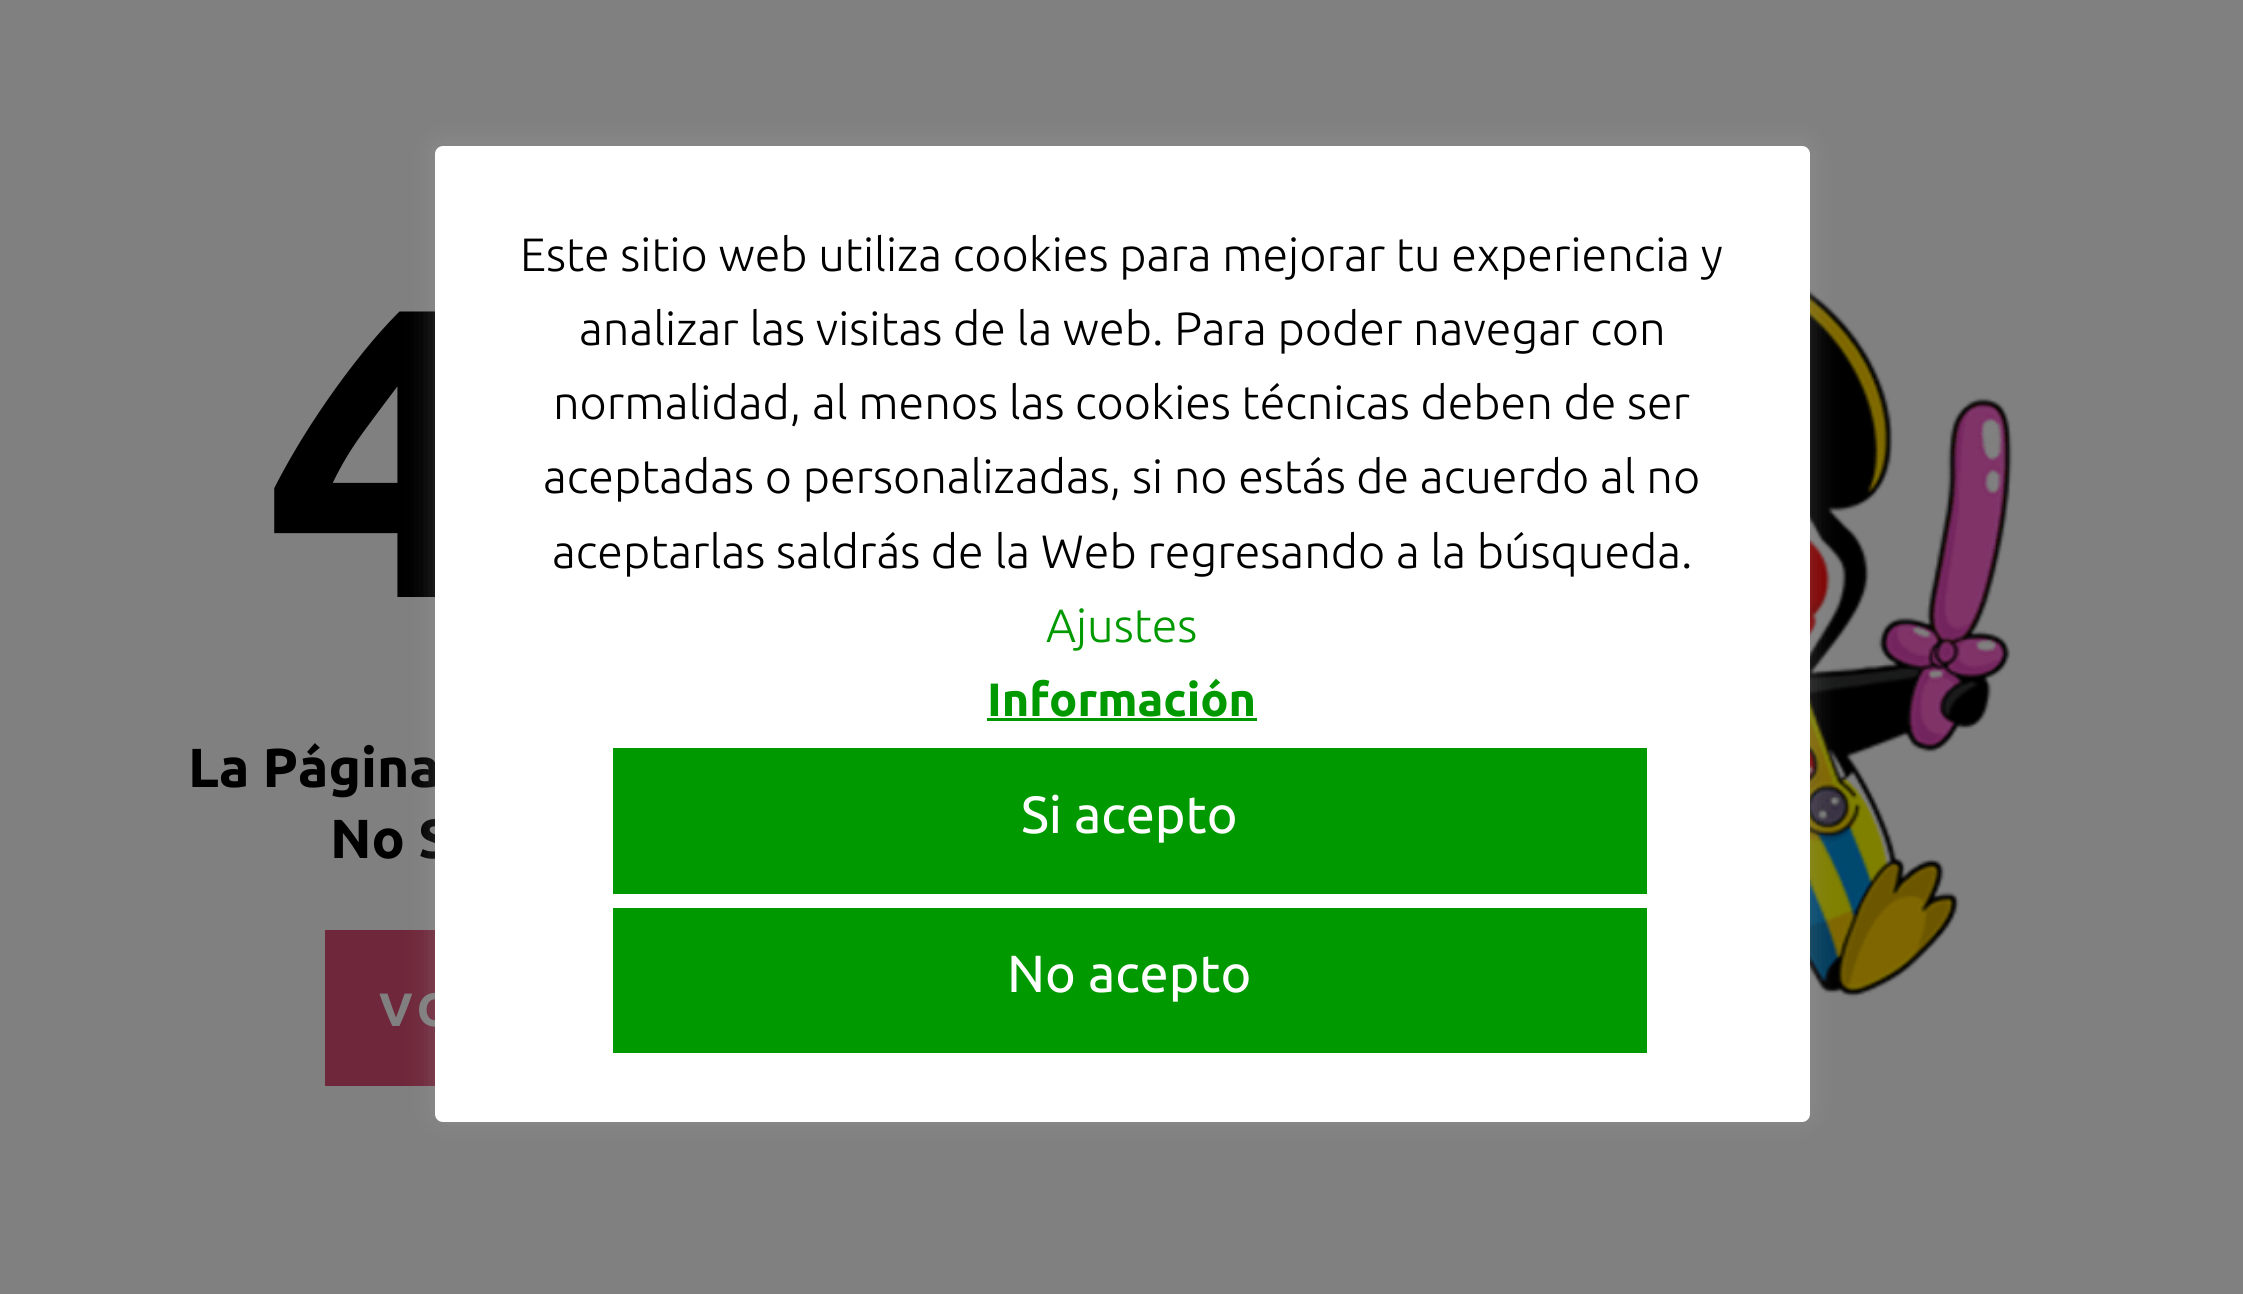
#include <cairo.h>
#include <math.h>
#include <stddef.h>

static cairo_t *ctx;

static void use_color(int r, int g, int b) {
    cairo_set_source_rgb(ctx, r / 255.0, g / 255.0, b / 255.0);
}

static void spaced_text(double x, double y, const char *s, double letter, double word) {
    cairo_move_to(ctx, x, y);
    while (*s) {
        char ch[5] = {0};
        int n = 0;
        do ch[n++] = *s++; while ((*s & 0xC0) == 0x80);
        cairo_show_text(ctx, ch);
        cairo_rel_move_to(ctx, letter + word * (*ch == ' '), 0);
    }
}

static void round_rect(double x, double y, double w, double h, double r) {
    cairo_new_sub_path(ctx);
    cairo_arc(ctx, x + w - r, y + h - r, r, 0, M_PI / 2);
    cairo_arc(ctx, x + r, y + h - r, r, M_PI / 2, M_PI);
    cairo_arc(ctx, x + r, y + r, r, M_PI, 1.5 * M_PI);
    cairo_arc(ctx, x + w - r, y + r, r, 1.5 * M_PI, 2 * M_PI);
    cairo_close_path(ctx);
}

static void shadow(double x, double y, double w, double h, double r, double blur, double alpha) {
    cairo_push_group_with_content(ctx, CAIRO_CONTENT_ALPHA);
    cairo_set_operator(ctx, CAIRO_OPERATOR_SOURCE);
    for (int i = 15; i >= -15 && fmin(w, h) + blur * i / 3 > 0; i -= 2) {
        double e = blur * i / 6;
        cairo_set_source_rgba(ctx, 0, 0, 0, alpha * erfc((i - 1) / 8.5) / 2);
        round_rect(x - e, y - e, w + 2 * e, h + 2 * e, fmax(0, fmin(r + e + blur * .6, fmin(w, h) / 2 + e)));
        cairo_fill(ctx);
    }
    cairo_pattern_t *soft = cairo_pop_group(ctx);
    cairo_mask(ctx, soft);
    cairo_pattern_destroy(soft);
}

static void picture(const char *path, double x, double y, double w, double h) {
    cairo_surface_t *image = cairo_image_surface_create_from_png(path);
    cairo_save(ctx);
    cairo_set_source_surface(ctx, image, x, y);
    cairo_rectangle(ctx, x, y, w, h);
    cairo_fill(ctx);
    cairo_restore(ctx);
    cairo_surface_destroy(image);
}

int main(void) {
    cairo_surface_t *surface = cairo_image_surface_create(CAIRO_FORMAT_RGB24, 2243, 1294);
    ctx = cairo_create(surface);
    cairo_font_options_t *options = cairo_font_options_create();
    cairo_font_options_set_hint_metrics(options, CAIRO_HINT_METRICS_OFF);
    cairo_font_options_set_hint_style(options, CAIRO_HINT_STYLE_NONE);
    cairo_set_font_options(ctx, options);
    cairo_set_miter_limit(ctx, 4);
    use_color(128, 128, 128);
    cairo_paint(ctx);
    cairo_select_font_face(ctx, "Ubuntu", CAIRO_FONT_SLANT_NORMAL, CAIRO_FONT_WEIGHT_BOLD);
    cairo_set_font_size(ctx, 412);
    use_color(0, 0, 0);
    cairo_move_to(ctx, 266, 597);
    cairo_show_text(ctx, "4");
    cairo_set_font_size(ctx, 55);
    cairo_move_to(ctx, 188, 787);
    cairo_show_text(ctx, "La Página");
    cairo_move_to(ctx, 330, 858);
    cairo_show_text(ctx, "No S");
    use_color(111, 40, 59);
    cairo_rectangle(ctx, 325, 930, 110, 156);
    cairo_fill(ctx);
    cairo_set_font_size(ctx, 46.75);
    use_color(128, 128, 128);
    spaced_text(379, 1026, "VO", 4, 0);
    picture("img1.png", 1810, 249, 204, 802);
    use_color(172, 171, 171);
    shadow(435, 143, 1375, 976, 8, 14, 0.3);
    use_color(255, 255, 255);
    round_rect(435, 146, 1375, 976, 8);
    cairo_fill(ctx);
    cairo_select_font_face(ctx, "Ubuntu Light", CAIRO_FONT_SLANT_NORMAL, CAIRO_FONT_WEIGHT_NORMAL);
    use_color(0, 0, 0);
    cairo_move_to(ctx, 520, 271);
    cairo_show_text(ctx, "Este sitio web utiliza cookies para mejorar tu experiencia y");
    cairo_move_to(ctx, 579, 345);
    cairo_show_text(ctx, "analizar las visitas de la web. Para poder navegar con");
    cairo_move_to(ctx, 553, 419);
    cairo_show_text(ctx, "normalidad, al menos las cookies técnicas deben de ser");
    cairo_move_to(ctx, 543, 493);
    cairo_show_text(ctx, "aceptadas o personalizadas, si no estás de acuerdo al no");
    cairo_move_to(ctx, 552, 568);
    cairo_show_text(ctx, "aceptarlas saldrás de la Web regresando a la búsqueda.");
    use_color(0, 153, 0);
    cairo_move_to(ctx, 1046, 642);
    cairo_show_text(ctx, "Ajustes");
    cairo_select_font_face(ctx, "Ubuntu", CAIRO_FONT_SLANT_NORMAL, CAIRO_FONT_WEIGHT_BOLD);
    cairo_move_to(ctx, 987, 716);
    cairo_show_text(ctx, "Información");
    cairo_rectangle(ctx, 987, 718, 270, 3);
    cairo_fill(ctx);
    cairo_rectangle(ctx, 613, 748, 1034, 146);
    cairo_fill(ctx);
    cairo_select_font_face(ctx, "Ubuntu", CAIRO_FONT_SLANT_NORMAL, CAIRO_FONT_WEIGHT_NORMAL);
    cairo_set_font_size(ctx, 52.25);
    use_color(255, 255, 255);
    cairo_move_to(ctx, 1021, 833);
    cairo_show_text(ctx, "Si acepto");
    use_color(0, 153, 0);
    cairo_rectangle(ctx, 613, 908, 1034, 145);
    cairo_fill(ctx);
    use_color(255, 255, 255);
    cairo_move_to(ctx, 1007, 992);
    cairo_show_text(ctx, "No acepto");
    cairo_surface_write_to_png(surface, "result.png");
    cairo_font_options_destroy(options);
    cairo_destroy(ctx);
    cairo_surface_destroy(surface);
    return 0;
}
